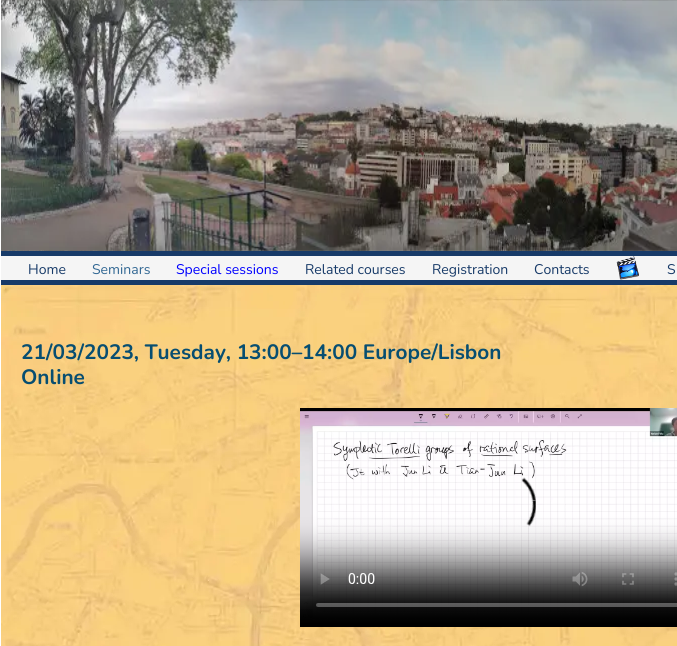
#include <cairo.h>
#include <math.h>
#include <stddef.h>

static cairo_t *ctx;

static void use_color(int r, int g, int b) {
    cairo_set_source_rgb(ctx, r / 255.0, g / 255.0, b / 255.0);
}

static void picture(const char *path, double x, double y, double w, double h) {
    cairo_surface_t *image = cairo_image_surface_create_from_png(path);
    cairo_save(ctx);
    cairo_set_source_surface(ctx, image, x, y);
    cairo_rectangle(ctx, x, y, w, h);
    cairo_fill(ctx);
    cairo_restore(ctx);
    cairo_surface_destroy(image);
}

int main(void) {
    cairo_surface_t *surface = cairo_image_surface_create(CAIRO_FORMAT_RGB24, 677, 646);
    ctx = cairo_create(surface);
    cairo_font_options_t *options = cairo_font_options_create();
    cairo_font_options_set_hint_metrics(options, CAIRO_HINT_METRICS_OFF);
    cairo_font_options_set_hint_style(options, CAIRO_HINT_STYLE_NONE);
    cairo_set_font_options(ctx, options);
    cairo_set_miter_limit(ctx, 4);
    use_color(255, 255, 255);
    cairo_paint(ctx);
    picture("img1.png", 1, 0, 676, 251);
    use_color(23, 58, 104);
    cairo_rectangle(ctx, 1, 251, 676, 5);
    cairo_fill(ctx);
    use_color(245, 245, 245);
    cairo_rectangle(ctx, 1, 256, 676, 24);
    cairo_fill(ctx);
    use_color(23, 58, 104);
    cairo_rectangle(ctx, 1, 280, 676, 5);
    cairo_fill(ctx);
    cairo_select_font_face(ctx, "Nunito", CAIRO_FONT_SLANT_NORMAL, CAIRO_FONT_WEIGHT_NORMAL);
    cairo_set_font_size(ctx, 14);
    cairo_move_to(ctx, 28, 274);
    cairo_show_text(ctx, "Home");
    use_color(49, 103, 147);
    cairo_move_to(ctx, 92, 274);
    cairo_show_text(ctx, "Seminars");
    use_color(0, 0, 255);
    cairo_move_to(ctx, 176, 274);
    cairo_show_text(ctx, "Special sessions");
    use_color(23, 58, 104);
    cairo_move_to(ctx, 305, 274);
    cairo_show_text(ctx, "Related courses");
    cairo_move_to(ctx, 432, 274);
    cairo_show_text(ctx, "Registration");
    cairo_move_to(ctx, 534, 274);
    cairo_show_text(ctx, "Contacts");
    picture("img2.png", 616, 256, 23, 24);
    cairo_move_to(ctx, 667, 274);
    cairo_show_text(ctx, "S");
    picture("img3.png", 1, 285, 676, 361);
    cairo_select_font_face(ctx, "Nunito", CAIRO_FONT_SLANT_NORMAL, CAIRO_FONT_WEIGHT_BOLD);
    cairo_set_font_size(ctx, 20.8);
    use_color(7, 78, 113);
    cairo_move_to(ctx, 21, 359);
    cairo_show_text(ctx, "21/03/2023, Tuesday, 13:00–14:00 Europe/Lisbon");
    cairo_move_to(ctx, 21, 384);
    cairo_show_text(ctx, "Online");
    picture("img4.png", 300, 408, 377, 219);
    cairo_surface_write_to_png(surface, "result.png");
    cairo_font_options_destroy(options);
    cairo_destroy(ctx);
    cairo_surface_destroy(surface);
    return 0;
}
